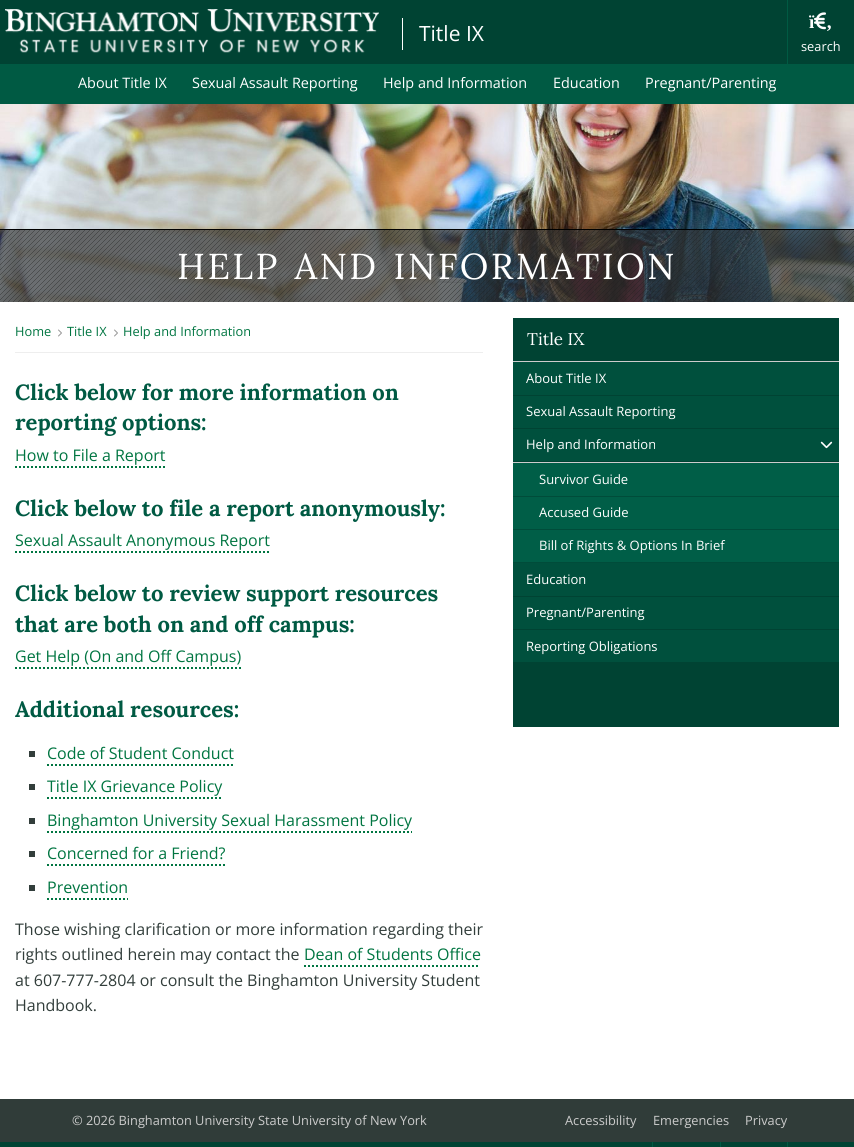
#include <cairo.h>
#include <math.h>
#include <stddef.h>

static cairo_t *ctx;

static void use_color(int r, int g, int b) {
    cairo_set_source_rgb(ctx, r / 255.0, g / 255.0, b / 255.0);
}

static void spaced_text(double x, double y, const char *s, double letter, double word) {
    cairo_move_to(ctx, x, y);
    while (*s) {
        char ch[5] = {0};
        int n = 0;
        do ch[n++] = *s++; while ((*s & 0xC0) == 0x80);
        cairo_show_text(ctx, ch);
        cairo_rel_move_to(ctx, letter + word * (*ch == ' '), 0);
    }
}

static void picture(const char *path, double x, double y, double w, double h) {
    cairo_surface_t *image = cairo_image_surface_create_from_png(path);
    cairo_save(ctx);
    cairo_set_source_surface(ctx, image, x, y);
    cairo_rectangle(ctx, x, y, w, h);
    cairo_fill(ctx);
    cairo_restore(ctx);
    cairo_surface_destroy(image);
}

int main(void) {
    cairo_surface_t *surface = cairo_image_surface_create(CAIRO_FORMAT_RGB24, 854, 1147);
    ctx = cairo_create(surface);
    cairo_font_options_t *options = cairo_font_options_create();
    cairo_font_options_set_hint_metrics(options, CAIRO_HINT_METRICS_OFF);
    cairo_font_options_set_hint_style(options, CAIRO_HINT_STYLE_NONE);
    cairo_set_font_options(ctx, options);
    cairo_set_miter_limit(ctx, 4);
    use_color(255, 255, 255);
    cairo_paint(ctx);
    use_color(0, 67, 51);
    cairo_rectangle(ctx, 0, 0, 854, 64);
    cairo_fill(ctx);
    picture("img1.png", 5, 9, 374, 44);
    use_color(255, 255, 255);
    cairo_rectangle(ctx, 402, 18, 1, 32);
    cairo_fill(ctx);
    cairo_select_font_face(ctx, "Open Sans", CAIRO_FONT_SLANT_NORMAL, CAIRO_FONT_WEIGHT_NORMAL);
    cairo_set_font_size(ctx, 21);
    cairo_move_to(ctx, 419, 41);
    cairo_show_text(ctx, "Title IX");
    use_color(0, 90, 67);
    cairo_rectangle(ctx, 787, 0, 1, 64);
    cairo_fill(ctx);
    picture("img2.png", 814, 12, 12, 18);
    cairo_select_font_face(ctx, "Liberation Serif", CAIRO_FONT_SLANT_NORMAL, CAIRO_FONT_WEIGHT_BOLD);
    cairo_set_font_size(ctx, 19);
    use_color(255, 255, 255);
    cairo_move_to(ctx, 809, 28);
    cairo_show_text(ctx, "ï");
    cairo_move_to(ctx, 826, 28);
    cairo_show_text(ctx, "‚");
    cairo_select_font_face(ctx, "Open Sans", CAIRO_FONT_SLANT_NORMAL, CAIRO_FONT_WEIGHT_NORMAL);
    cairo_set_font_size(ctx, 12.8);
    cairo_move_to(ctx, 801, 51);
    cairo_show_text(ctx, "search");
    use_color(0, 90, 67);
    cairo_rectangle(ctx, 0, 64, 854, 40);
    cairo_fill(ctx);
    cairo_set_font_size(ctx, 14.4);
    use_color(255, 255, 255);
    cairo_move_to(ctx, 78, 88);
    cairo_show_text(ctx, "About Title IX");
    cairo_move_to(ctx, 192, 88);
    cairo_show_text(ctx, "Sexual Assault Reporting");
    cairo_move_to(ctx, 383, 88);
    cairo_show_text(ctx, "Help and Information");
    cairo_move_to(ctx, 553, 88);
    cairo_show_text(ctx, "Education");
    cairo_move_to(ctx, 645, 88);
    cairo_show_text(ctx, "Pregnant/Parenting");
    picture("img3.png", 0, 104, 854, 198);
    picture("img4.png", 0, 230, 854, 72);
    use_color(0, 0, 0);
    cairo_rectangle(ctx, 0, 229, 854, 1);
    cairo_fill(ctx);
    cairo_select_font_face(ctx, "Lora", CAIRO_FONT_SLANT_NORMAL, CAIRO_FONT_WEIGHT_NORMAL);
    cairo_set_font_size(ctx, 36);
    use_color(255, 255, 255);
    spaced_text(177, 279, "HELP AND INFORMATION", 2.4, 3);
    use_color(238, 238, 238);
    cairo_rectangle(ctx, 15, 352, 468, 1);
    cairo_fill(ctx);
    cairo_select_font_face(ctx, "Open Sans", CAIRO_FONT_SLANT_NORMAL, CAIRO_FONT_WEIGHT_NORMAL);
    cairo_set_font_size(ctx, 12.8);
    use_color(0, 117, 65);
    cairo_move_to(ctx, 15, 336);
    cairo_show_text(ctx, "Home");
    picture("img5.png", 58, 329, 4, 8);
    cairo_move_to(ctx, 67, 336);
    cairo_show_text(ctx, "Title IX");
    picture("img5.png", 114, 329, 4, 8);
    cairo_move_to(ctx, 123, 336);
    cairo_show_text(ctx, "Help and Information");
    cairo_select_font_face(ctx, "Lora", CAIRO_FONT_SLANT_NORMAL, CAIRO_FONT_WEIGHT_BOLD);
    cairo_set_font_size(ctx, 22);
    use_color(0, 90, 67);
    cairo_move_to(ctx, 15, 400);
    cairo_show_text(ctx, "Click below for more information on");
    cairo_move_to(ctx, 15, 430);
    cairo_show_text(ctx, "reporting options:");
    cairo_select_font_face(ctx, "Open Sans", CAIRO_FONT_SLANT_NORMAL, CAIRO_FONT_WEIGHT_NORMAL);
    cairo_set_font_size(ctx, 16);
    use_color(0, 117, 65);
    cairo_move_to(ctx, 15, 461);
    cairo_show_text(ctx, "How to File a Report");
    cairo_new_path(ctx);
    cairo_move_to(ctx, 15, 467);
    cairo_line_to(ctx, 166, 467);
    cairo_set_dash(ctx, (double[]){2, 2}, 2, 0);
    cairo_stroke(ctx);
    cairo_select_font_face(ctx, "Lora", CAIRO_FONT_SLANT_NORMAL, CAIRO_FONT_WEIGHT_BOLD);
    cairo_set_font_size(ctx, 22);
    use_color(0, 90, 67);
    cairo_move_to(ctx, 15, 516);
    cairo_show_text(ctx, "Click below to file a report anonymously:");
    cairo_select_font_face(ctx, "Open Sans", CAIRO_FONT_SLANT_NORMAL, CAIRO_FONT_WEIGHT_NORMAL);
    cairo_set_font_size(ctx, 16);
    use_color(0, 117, 65);
    cairo_move_to(ctx, 15, 546);
    cairo_show_text(ctx, "Sexual Assault Anonymous Report");
    cairo_new_path(ctx);
    cairo_move_to(ctx, 15, 552);
    cairo_line_to(ctx, 270, 552);
    cairo_stroke(ctx);
    cairo_select_font_face(ctx, "Lora", CAIRO_FONT_SLANT_NORMAL, CAIRO_FONT_WEIGHT_BOLD);
    cairo_set_font_size(ctx, 22);
    use_color(0, 90, 67);
    cairo_move_to(ctx, 15, 601);
    cairo_show_text(ctx, "Click below to review support resources");
    cairo_move_to(ctx, 15, 632);
    cairo_show_text(ctx, "that are both on and off campus:");
    cairo_select_font_face(ctx, "Open Sans", CAIRO_FONT_SLANT_NORMAL, CAIRO_FONT_WEIGHT_NORMAL);
    cairo_set_font_size(ctx, 16);
    use_color(0, 117, 65);
    cairo_move_to(ctx, 15, 662);
    cairo_show_text(ctx, "Get Help (On and Off Campus)");
    cairo_new_path(ctx);
    cairo_move_to(ctx, 15, 668);
    cairo_line_to(ctx, 241, 668);
    cairo_stroke(ctx);
    cairo_select_font_face(ctx, "Lora", CAIRO_FONT_SLANT_NORMAL, CAIRO_FONT_WEIGHT_BOLD);
    cairo_set_font_size(ctx, 22);
    use_color(0, 90, 67);
    cairo_move_to(ctx, 15, 717);
    cairo_show_text(ctx, "Additional resources:");
    use_color(50, 62, 59);
    cairo_rectangle(ctx, 29, 751, 6, 6);
    cairo_fill(ctx);
    cairo_select_font_face(ctx, "Open Sans", CAIRO_FONT_SLANT_NORMAL, CAIRO_FONT_WEIGHT_NORMAL);
    cairo_set_font_size(ctx, 16);
    use_color(0, 117, 65);
    cairo_move_to(ctx, 47, 759);
    cairo_show_text(ctx, "Code of Student Conduct");
    cairo_new_path(ctx);
    cairo_move_to(ctx, 47, 765);
    cairo_line_to(ctx, 234, 765);
    cairo_stroke(ctx);
    use_color(50, 62, 59);
    cairo_rectangle(ctx, 29, 784, 6, 6);
    cairo_fill(ctx);
    use_color(0, 117, 65);
    cairo_move_to(ctx, 47, 792);
    cairo_show_text(ctx, "Title IX Grievance Policy");
    cairo_new_path(ctx);
    cairo_move_to(ctx, 47, 798);
    cairo_line_to(ctx, 222, 798);
    cairo_stroke(ctx);
    use_color(50, 62, 59);
    cairo_rectangle(ctx, 29, 818, 6, 6);
    cairo_fill(ctx);
    use_color(0, 117, 65);
    cairo_move_to(ctx, 47, 826);
    cairo_show_text(ctx, "Binghamton University Sexual Harassment Policy");
    cairo_new_path(ctx);
    cairo_move_to(ctx, 47, 832);
    cairo_line_to(ctx, 412, 832);
    cairo_stroke(ctx);
    use_color(50, 62, 59);
    cairo_rectangle(ctx, 29, 851, 6, 6);
    cairo_fill(ctx);
    use_color(0, 117, 65);
    cairo_move_to(ctx, 47, 859);
    cairo_show_text(ctx, "Concerned for a Friend?");
    cairo_new_path(ctx);
    cairo_move_to(ctx, 47, 865);
    cairo_line_to(ctx, 226, 865);
    cairo_stroke(ctx);
    use_color(50, 62, 59);
    cairo_rectangle(ctx, 29, 885, 6, 6);
    cairo_fill(ctx);
    use_color(0, 117, 65);
    cairo_move_to(ctx, 47, 893);
    cairo_show_text(ctx, "Prevention");
    cairo_new_path(ctx);
    cairo_move_to(ctx, 47, 899);
    cairo_line_to(ctx, 128, 899);
    cairo_stroke(ctx);
    use_color(50, 62, 59);
    cairo_move_to(ctx, 15, 935);
    cairo_show_text(ctx, "Those wishing clarification or more information regarding their");
    cairo_move_to(ctx, 15, 960);
    cairo_show_text(ctx, "rights outlined herein may contact the");
    use_color(0, 117, 65);
    cairo_move_to(ctx, 304, 960);
    cairo_show_text(ctx, "Dean of Students Office");
    cairo_new_path(ctx);
    cairo_move_to(ctx, 304, 966);
    cairo_line_to(ctx, 480, 966);
    cairo_stroke(ctx);
    use_color(50, 62, 59);
    cairo_move_to(ctx, 15, 986);
    cairo_show_text(ctx, "at 607-777-2804 or consult the Binghamton University Student");
    cairo_move_to(ctx, 15, 1011);
    cairo_show_text(ctx, "Handbook.");
    use_color(0, 67, 51);
    cairo_rectangle(ctx, 513, 318, 326, 409);
    cairo_fill(ctx);
    cairo_select_font_face(ctx, "Lora", CAIRO_FONT_SLANT_NORMAL, CAIRO_FONT_WEIGHT_NORMAL);
    cairo_set_font_size(ctx, 17);
    use_color(255, 255, 255);
    cairo_move_to(ctx, 527, 345);
    cairo_show_text(ctx, "Title IX");
    use_color(0, 80, 61);
    cairo_rectangle(ctx, 513, 362, 326, 300);
    cairo_fill(ctx);
    use_color(204, 204, 204);
    cairo_rectangle(ctx, 513, 361, 326, 1);
    cairo_fill(ctx);
    use_color(0, 67, 51);
    cairo_rectangle(ctx, 513, 395, 326, 1);
    cairo_fill(ctx);
    cairo_select_font_face(ctx, "Open Sans", CAIRO_FONT_SLANT_NORMAL, CAIRO_FONT_WEIGHT_NORMAL);
    cairo_set_font_size(ctx, 13);
    use_color(255, 255, 255);
    cairo_move_to(ctx, 526, 383);
    cairo_show_text(ctx, "About Title IX");
    use_color(0, 67, 51);
    cairo_rectangle(ctx, 513, 428, 326, 1);
    cairo_fill(ctx);
    use_color(255, 255, 255);
    cairo_move_to(ctx, 526, 416);
    cairo_show_text(ctx, "Sexual Assault Reporting");
    use_color(0, 67, 51);
    cairo_rectangle(ctx, 513, 461, 326, 1);
    cairo_fill(ctx);
    use_color(255, 255, 255);
    cairo_move_to(ctx, 526, 449);
    cairo_show_text(ctx, "Help and Information");
    picture("img6.png", 820, 441, 13, 8);
    use_color(0, 94, 71);
    cairo_rectangle(ctx, 513, 463, 326, 99);
    cairo_fill(ctx);
    use_color(204, 204, 204);
    cairo_rectangle(ctx, 513, 462, 326, 1);
    cairo_fill(ctx);
    use_color(0, 76, 58);
    cairo_rectangle(ctx, 513, 496, 326, 1);
    cairo_fill(ctx);
    use_color(255, 255, 255);
    cairo_move_to(ctx, 539, 484);
    cairo_show_text(ctx, "Survivor Guide");
    use_color(0, 76, 58);
    cairo_rectangle(ctx, 513, 529, 326, 1);
    cairo_fill(ctx);
    use_color(255, 255, 255);
    cairo_move_to(ctx, 539, 517);
    cairo_show_text(ctx, "Accused Guide");
    use_color(0, 76, 58);
    cairo_rectangle(ctx, 513, 562, 326, 1);
    cairo_fill(ctx);
    use_color(255, 255, 255);
    cairo_move_to(ctx, 539, 550);
    cairo_show_text(ctx, "Bill of Rights & Options In Brief");
    use_color(0, 67, 51);
    cairo_rectangle(ctx, 513, 596, 326, 1);
    cairo_fill(ctx);
    use_color(255, 255, 255);
    cairo_move_to(ctx, 526, 584);
    cairo_show_text(ctx, "Education");
    use_color(0, 67, 51);
    cairo_rectangle(ctx, 513, 629, 326, 1);
    cairo_fill(ctx);
    use_color(255, 255, 255);
    cairo_move_to(ctx, 526, 617);
    cairo_show_text(ctx, "Pregnant/Parenting");
    cairo_move_to(ctx, 526, 651);
    cairo_show_text(ctx, "Reporting Obligations");
    use_color(48, 60, 57);
    cairo_rectangle(ctx, 0, 1099, 854, 43);
    cairo_fill(ctx);
    cairo_set_font_size(ctx, 12.8);
    use_color(204, 204, 204);
    cairo_move_to(ctx, 72, 1125);
    cairo_show_text(ctx, "© 2026 Binghamton University State University of New York");
    cairo_move_to(ctx, 565, 1125);
    cairo_show_text(ctx, "Accessibility");
    cairo_move_to(ctx, 653, 1125);
    cairo_show_text(ctx, "Emergencies");
    cairo_move_to(ctx, 745, 1125);
    cairo_show_text(ctx, "Privacy");
    use_color(0, 67, 51);
    cairo_rectangle(ctx, 0, 1142, 854, 5);
    cairo_fill(ctx);
    use_color(0, 90, 67);
    cairo_rectangle(ctx, 652, 1142, 1, 5);
    cairo_fill(ctx);
    cairo_rectangle(ctx, 720, 1142, 1, 5);
    cairo_fill(ctx);
    cairo_rectangle(ctx, 787, 1142, 1, 5);
    cairo_fill(ctx);
    cairo_surface_write_to_png(surface, "result.png");
    cairo_font_options_destroy(options);
    cairo_destroy(ctx);
    cairo_surface_destroy(surface);
    return 0;
}
